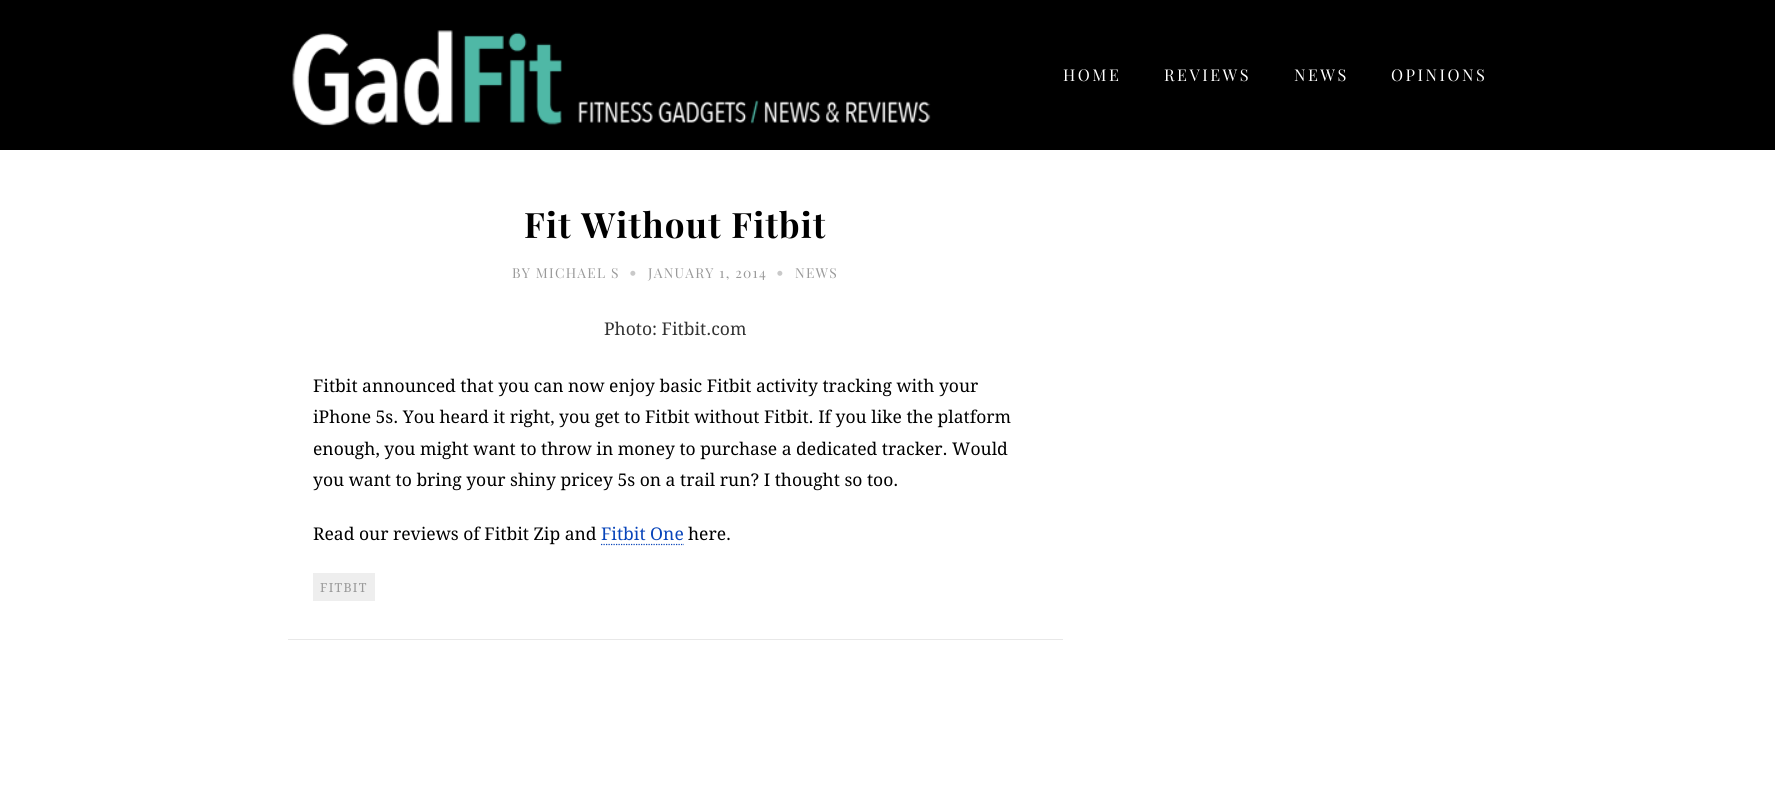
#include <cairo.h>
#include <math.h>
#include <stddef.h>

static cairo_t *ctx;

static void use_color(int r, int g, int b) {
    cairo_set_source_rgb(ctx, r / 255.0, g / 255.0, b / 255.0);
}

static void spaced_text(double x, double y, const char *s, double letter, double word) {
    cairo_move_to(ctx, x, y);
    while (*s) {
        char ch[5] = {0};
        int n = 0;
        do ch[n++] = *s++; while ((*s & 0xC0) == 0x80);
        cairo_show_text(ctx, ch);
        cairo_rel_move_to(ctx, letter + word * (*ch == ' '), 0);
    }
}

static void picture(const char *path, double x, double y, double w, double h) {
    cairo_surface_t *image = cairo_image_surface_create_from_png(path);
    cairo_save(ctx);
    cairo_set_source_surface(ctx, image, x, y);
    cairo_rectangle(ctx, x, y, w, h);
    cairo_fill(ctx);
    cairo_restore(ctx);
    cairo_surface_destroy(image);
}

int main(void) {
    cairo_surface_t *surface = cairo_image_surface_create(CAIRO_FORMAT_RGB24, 1775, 809);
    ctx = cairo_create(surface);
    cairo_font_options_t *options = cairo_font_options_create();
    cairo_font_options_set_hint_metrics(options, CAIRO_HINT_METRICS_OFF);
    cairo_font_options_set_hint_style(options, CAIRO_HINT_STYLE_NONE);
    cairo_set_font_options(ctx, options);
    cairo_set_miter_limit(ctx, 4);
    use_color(255, 255, 255);
    cairo_paint(ctx);
    use_color(0, 0, 0);
    cairo_rectangle(ctx, 0, 0, 1775, 150);
    cairo_fill(ctx);
    picture("img1.png", 292, 30, 639, 96);
    cairo_select_font_face(ctx, "Playfair Display", CAIRO_FONT_SLANT_NORMAL, CAIRO_FONT_WEIGHT_NORMAL);
    cairo_set_font_size(ctx, 16.25);
    use_color(255, 255, 255);
    spaced_text(1063, 81, "HOME", 2.5, 0);
    spaced_text(1164, 81, "REVIEWS", 2.5, 0);
    spaced_text(1294, 81, "NEWS", 2.5, 0);
    spaced_text(1391, 81, "OPINIONS", 2.5, 0);
    cairo_select_font_face(ctx, "Playfair Display", CAIRO_FONT_SLANT_NORMAL, CAIRO_FONT_WEIGHT_BOLD);
    cairo_set_font_size(ctx, 35);
    use_color(0, 0, 0);
    spaced_text(524, 238, "Fit Without Fitbit", 1.25, 0);
    cairo_select_font_face(ctx, "Playfair Display", CAIRO_FONT_SLANT_NORMAL, CAIRO_FONT_WEIGHT_NORMAL);
    cairo_set_font_size(ctx, 13.75);
    use_color(153, 153, 153);
    spaced_text(512, 278, "BY MICHAEL S", 1.25, 0);
    cairo_set_font_size(ctx, 17.5);
    use_color(201, 201, 201);
    spaced_text(629, 278, "•", 1.25, 0);
    cairo_set_font_size(ctx, 13.75);
    use_color(153, 153, 153);
    spaced_text(648, 278, "JANUARY 1, 2014", 1.25, 0);
    cairo_set_font_size(ctx, 17.5);
    use_color(201, 201, 201);
    spaced_text(776, 278, "•", 1.25, 0);
    cairo_set_font_size(ctx, 13.75);
    use_color(153, 153, 153);
    spaced_text(795, 278, "NEWS", 1.25, 0);
    cairo_select_font_face(ctx, "Droid Serif", CAIRO_FONT_SLANT_NORMAL, CAIRO_FONT_WEIGHT_NORMAL);
    cairo_set_font_size(ctx, 17.5);
    use_color(51, 51, 51);
    cairo_move_to(ctx, 604, 335);
    cairo_show_text(ctx, "Photo: Fitbit.com");
    use_color(0, 0, 0);
    cairo_move_to(ctx, 313, 392);
    cairo_show_text(ctx, "Fitbit announced that you can now enjoy basic Fitbit activity tracking with your");
    cairo_move_to(ctx, 313, 423);
    cairo_show_text(ctx, "iPhone 5s. You heard it right, you get to Fitbit without Fitbit. If you like the platform");
    cairo_move_to(ctx, 313, 455);
    cairo_show_text(ctx, "enough, you might want to throw in money to purchase a dedicated tracker. Would");
    cairo_move_to(ctx, 313, 486);
    cairo_show_text(ctx, "you want to bring your shiny pricey 5s on a trail run? I thought so too.");
    cairo_move_to(ctx, 313, 540);
    cairo_show_text(ctx, "Read our reviews of Fitbit Zip and");
    use_color(7, 68, 186);
    cairo_move_to(ctx, 601, 540);
    cairo_show_text(ctx, "Fitbit One");
    cairo_new_path(ctx);
    cairo_move_to(ctx, 601, 544.5);
    cairo_line_to(ctx, 684, 544.5);
    cairo_set_line_width(ctx, 1.2);
    cairo_set_dash(ctx, (double[]){1.25, 1.25}, 2, 0);
    cairo_stroke(ctx);
    use_color(0, 0, 0);
    cairo_move_to(ctx, 688, 540);
    cairo_show_text(ctx, "here.");
    use_color(238, 238, 238);
    cairo_rectangle(ctx, 313, 573, 62, 28);
    cairo_fill(ctx);
    cairo_set_font_size(ctx, 12.5);
    use_color(153, 153, 153);
    spaced_text(320, 592, "FITBIT", 1.25, 0);
    use_color(232, 232, 232);
    cairo_rectangle(ctx, 288, 639, 775, 1);
    cairo_fill(ctx);
    cairo_surface_write_to_png(surface, "result.png");
    cairo_font_options_destroy(options);
    cairo_destroy(ctx);
    cairo_surface_destroy(surface);
    return 0;
}
